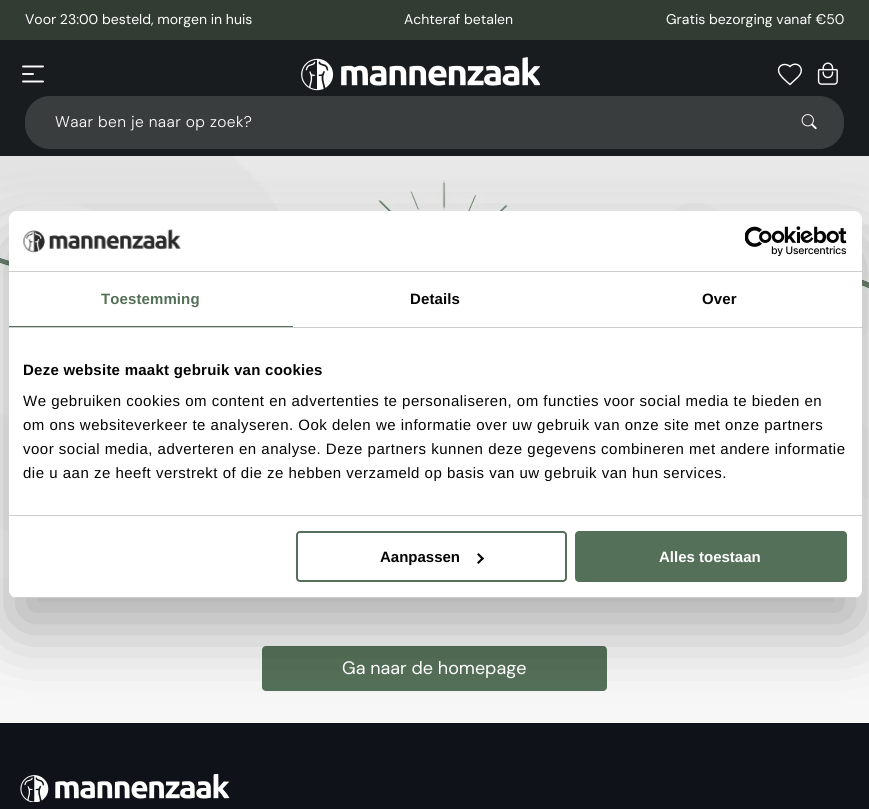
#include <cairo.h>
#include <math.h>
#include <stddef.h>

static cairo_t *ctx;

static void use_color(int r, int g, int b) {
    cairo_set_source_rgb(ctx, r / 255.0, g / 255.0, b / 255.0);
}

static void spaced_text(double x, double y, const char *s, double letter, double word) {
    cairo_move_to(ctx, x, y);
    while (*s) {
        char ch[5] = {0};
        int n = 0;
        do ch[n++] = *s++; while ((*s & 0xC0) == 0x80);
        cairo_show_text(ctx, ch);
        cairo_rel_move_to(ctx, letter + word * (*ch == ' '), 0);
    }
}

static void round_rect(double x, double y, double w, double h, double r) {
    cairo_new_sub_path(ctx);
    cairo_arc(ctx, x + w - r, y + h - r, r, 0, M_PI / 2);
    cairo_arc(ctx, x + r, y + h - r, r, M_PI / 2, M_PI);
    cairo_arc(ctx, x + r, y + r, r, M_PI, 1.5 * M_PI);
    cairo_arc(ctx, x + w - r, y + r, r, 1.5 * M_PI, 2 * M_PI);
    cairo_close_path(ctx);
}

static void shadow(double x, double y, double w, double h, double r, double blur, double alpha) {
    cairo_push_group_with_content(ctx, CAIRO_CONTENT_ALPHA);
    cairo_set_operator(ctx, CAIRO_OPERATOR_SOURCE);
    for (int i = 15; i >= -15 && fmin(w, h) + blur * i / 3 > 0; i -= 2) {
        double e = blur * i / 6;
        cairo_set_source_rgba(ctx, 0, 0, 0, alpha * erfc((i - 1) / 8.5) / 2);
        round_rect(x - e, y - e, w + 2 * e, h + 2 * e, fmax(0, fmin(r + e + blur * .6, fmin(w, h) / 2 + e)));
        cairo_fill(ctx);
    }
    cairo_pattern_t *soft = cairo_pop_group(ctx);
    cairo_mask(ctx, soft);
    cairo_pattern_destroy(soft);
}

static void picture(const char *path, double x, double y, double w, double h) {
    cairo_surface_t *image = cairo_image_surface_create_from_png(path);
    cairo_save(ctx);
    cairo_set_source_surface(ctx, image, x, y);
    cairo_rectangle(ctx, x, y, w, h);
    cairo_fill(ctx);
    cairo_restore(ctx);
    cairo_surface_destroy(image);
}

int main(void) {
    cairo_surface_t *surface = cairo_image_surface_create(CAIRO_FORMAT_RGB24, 869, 809);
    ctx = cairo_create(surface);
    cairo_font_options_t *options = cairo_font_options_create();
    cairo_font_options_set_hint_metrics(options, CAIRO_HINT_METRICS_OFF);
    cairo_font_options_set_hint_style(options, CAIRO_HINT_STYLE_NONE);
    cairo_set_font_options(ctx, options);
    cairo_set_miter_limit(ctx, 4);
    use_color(247, 247, 247);
    cairo_paint(ctx);
    use_color(50, 60, 51);
    cairo_rectangle(ctx, 0, 0, 869, 40);
    cairo_fill(ctx);
    cairo_select_font_face(ctx, "DM Sans", CAIRO_FONT_SLANT_NORMAL, CAIRO_FONT_WEIGHT_NORMAL);
    cairo_set_font_size(ctx, 14);
    use_color(255, 255, 255);
    cairo_move_to(ctx, 25, 24);
    cairo_show_text(ctx, "Voor 23:00 besteld, morgen in huis");
    cairo_move_to(ctx, 404, 24);
    cairo_show_text(ctx, "Achteraf betalen");
    cairo_move_to(ctx, 666, 24);
    cairo_show_text(ctx, "Gratis bezorging vanaf €50");
    use_color(24, 28, 30);
    cairo_rectangle(ctx, 0, 40, 869, 116);
    cairo_fill(ctx);
    cairo_new_path(ctx);
    cairo_move_to(ctx, 23, 66.5);
    cairo_line_to(ctx, 43, 66.5);
    cairo_move_to(ctx, 23, 74);
    cairo_line_to(ctx, 33, 74);
    cairo_move_to(ctx, 23, 81.5);
    cairo_line_to(ctx, 43, 81.5);
    use_color(255, 255, 255);
    cairo_set_line_width(ctx, 1.9);
    cairo_set_line_cap(ctx, CAIRO_LINE_CAP_ROUND);
    cairo_set_line_join(ctx, CAIRO_LINE_JOIN_ROUND);
    cairo_stroke(ctx);
    picture("img1.png", 301, 57, 239, 34);
    cairo_new_path(ctx);
    cairo_move_to(ctx, 798, 77);
    cairo_curve_to(ctx, 806.5, 68.5, 796.5, 60, 790, 66.5);
    cairo_curve_to(ctx, 785, 62, 776.5, 65.5, 779, 72.5);
    cairo_curve_to(ctx, 780, 76, 787, 82, 790, 84.5);
    cairo_close_path(ctx);
    cairo_set_line_width(ctx, 1.4);
    cairo_set_line_join(ctx, CAIRO_LINE_JOIN_MITER);
    cairo_stroke(ctx);
    picture("img2.png", 817, 62, 21, 23);
    use_color(58, 61, 62);
    round_rect(25.5, 96.5, 818, 52, 24.5);
    cairo_fill_preserve(ctx);
    cairo_set_line_width(ctx, 1);
    cairo_set_line_cap(ctx, CAIRO_LINE_CAP_BUTT);
    cairo_stroke(ctx);
    cairo_select_font_face(ctx, "DM Sans Light", CAIRO_FONT_SLANT_NORMAL, CAIRO_FONT_WEIGHT_NORMAL);
    cairo_set_font_size(ctx, 15.5);
    use_color(255, 255, 255);
    spaced_text(55, 127, "Waar ben je naar op zoek?", 0.4, 0);
    picture("img3.png", 801, 114, 16, 16);
    picture("img6.png", 0, 156, 869, 423);
    use_color(85, 112, 88);
    round_rect(262, 646, 345, 45, 4);
    cairo_fill(ctx);
    use_color(15, 19, 25);
    cairo_rectangle(ctx, 0, 723, 869, 86);
    cairo_fill(ctx);
    use_color(0, 0, 0);
    shadow(9, 243, 853, 387, 8, 34, 0.3);
    use_color(255, 255, 255);
    round_rect(9, 211, 853, 387, 8);
    cairo_fill(ctx);
    use_color(205, 205, 205);
    cairo_rectangle(ctx, 9, 271, 853, 1);
    cairo_fill(ctx);
    picture("img4.png", 23, 229, 158, 24);
    picture("img5.png", 745, 226, 102, 30);
    cairo_rectangle(ctx, 9, 327, 853, 1);
    cairo_fill(ctx);
    use_color(85, 112, 88);
    cairo_rectangle(ctx, 9, 326, 284, 1);
    cairo_fill(ctx);
    cairo_select_font_face(ctx, "Liberation Sans", CAIRO_FONT_SLANT_NORMAL, CAIRO_FONT_WEIGHT_BOLD);
    cairo_set_font_size(ctx, 15);
    spaced_text(101, 304, "Toestemming", 0.1, 0);
    use_color(4, 4, 4);
    spaced_text(410, 304, "Details", 0.1, 0);
    spaced_text(702, 304, "Over", 0.1, 0);
    use_color(205, 205, 205);
    cairo_rectangle(ctx, 9, 515, 853, 1);
    cairo_fill(ctx);
    use_color(4, 4, 4);
    spaced_text(23, 375, "Deze website maakt gebruik van cookies", 0.25, 0);
    cairo_select_font_face(ctx, "Liberation Sans", CAIRO_FONT_SLANT_NORMAL, CAIRO_FONT_WEIGHT_NORMAL);
    spaced_text(23, 406, "We gebruiken cookies om content en advertenties te personaliseren, om functies voor social media te bieden en", 0.5, 0);
    spaced_text(23, 430, "om ons websiteverkeer te analyseren. Ook delen we informatie over uw gebruik van onze site met onze partners", 0.5, 0);
    spaced_text(23, 454, "voor social media, adverteren en analyse. Deze partners kunnen deze gegevens combineren met andere informatie", 0.5, 0);
    spaced_text(23, 478, "die u aan ze heeft verstrekt of die ze hebben verzameld op basis van uw gebruik van hun services.", 0.5, 0);
    cairo_save(ctx);
    round_rect(9, 211, 853, 387, 8);
    cairo_clip(ctx);
    use_color(205, 205, 205);
    cairo_rectangle(ctx, 9, 597, 853, 1);
    cairo_fill(ctx);
    cairo_restore(ctx);
    round_rect(297, 532, 269, 49, 3);
    use_color(85, 112, 88);
    cairo_set_line_width(ctx, 2);
    cairo_stroke(ctx);
    cairo_select_font_face(ctx, "Liberation Sans", CAIRO_FONT_SLANT_NORMAL, CAIRO_FONT_WEIGHT_BOLD);
    use_color(4, 4, 4);
    cairo_move_to(ctx, 380, 562);
    cairo_show_text(ctx, "Aanpassen");
    cairo_new_path(ctx);
    cairo_move_to(ctx, 478.5, 553);
    cairo_line_to(ctx, 484, 558.5);
    cairo_line_to(ctx, 482.5, 560);
    cairo_line_to(ctx, 477, 554.5);
    cairo_close_path(ctx);
    cairo_fill(ctx);
    cairo_new_path(ctx);
    cairo_move_to(ctx, 482.5, 557);
    cairo_line_to(ctx, 484, 558.5);
    cairo_line_to(ctx, 478.5, 564);
    cairo_line_to(ctx, 477, 562.5);
    cairo_close_path(ctx);
    cairo_fill(ctx);
    use_color(85, 112, 88);
    round_rect(576, 532, 270, 49, 3);
    cairo_fill_preserve(ctx);
    cairo_stroke(ctx);
    use_color(255, 255, 255);
    cairo_move_to(ctx, 659, 562);
    cairo_show_text(ctx, "Alles toestaan");
    cairo_select_font_face(ctx, "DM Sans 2", CAIRO_FONT_SLANT_NORMAL, CAIRO_FONT_WEIGHT_NORMAL);
    cairo_set_font_size(ctx, 18);
    cairo_move_to(ctx, 342, 674);
    cairo_show_text(ctx, "Ga naar de homepage");
    picture("img7.png", 20, 774, 210, 28);
    cairo_surface_write_to_png(surface, "result.png");
    cairo_font_options_destroy(options);
    cairo_destroy(ctx);
    cairo_surface_destroy(surface);
    return 0;
}
